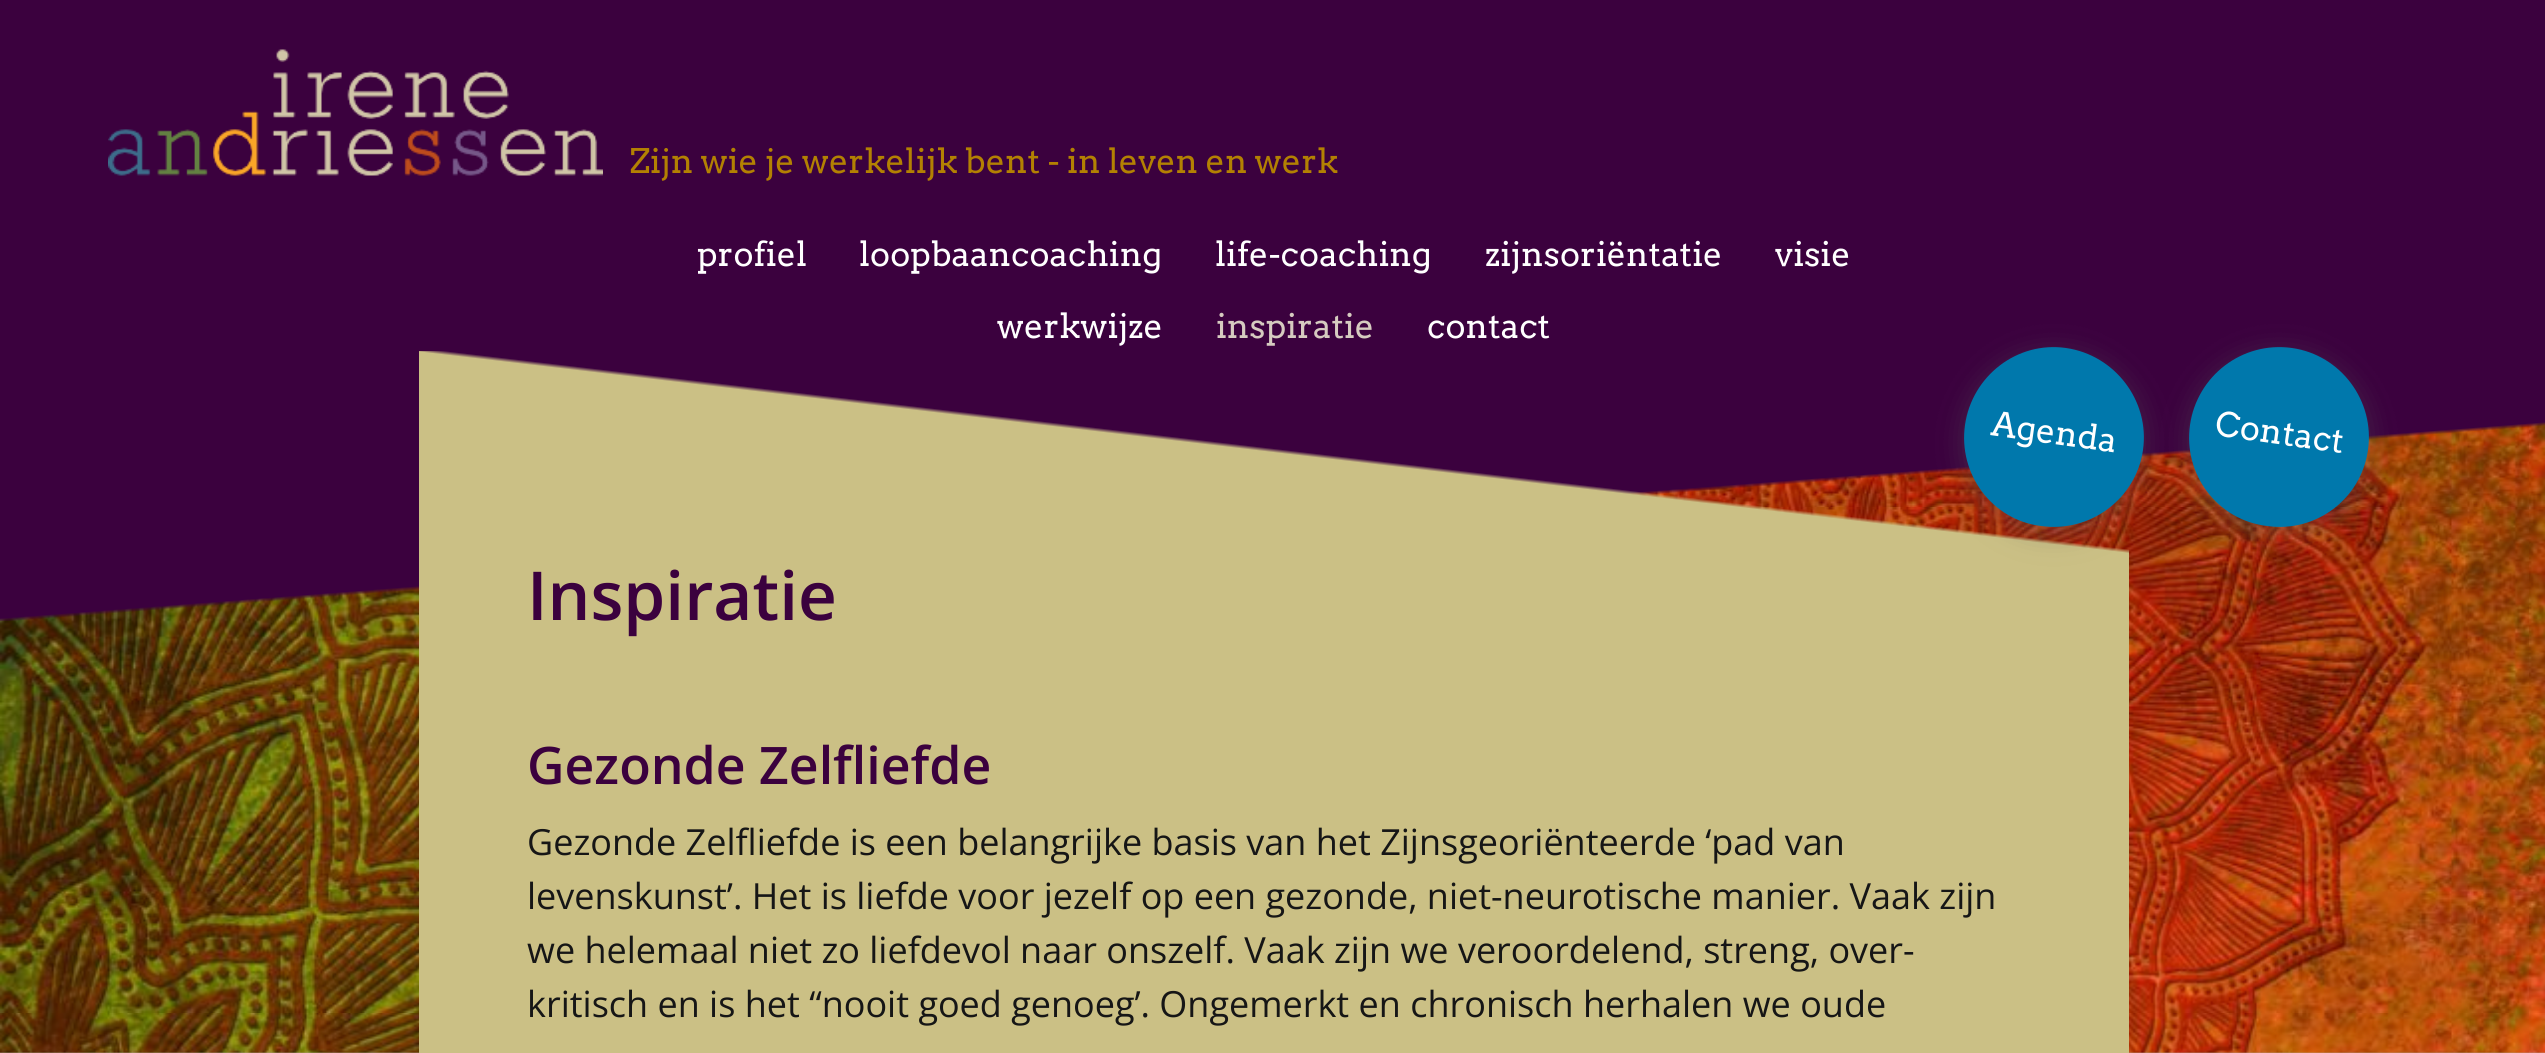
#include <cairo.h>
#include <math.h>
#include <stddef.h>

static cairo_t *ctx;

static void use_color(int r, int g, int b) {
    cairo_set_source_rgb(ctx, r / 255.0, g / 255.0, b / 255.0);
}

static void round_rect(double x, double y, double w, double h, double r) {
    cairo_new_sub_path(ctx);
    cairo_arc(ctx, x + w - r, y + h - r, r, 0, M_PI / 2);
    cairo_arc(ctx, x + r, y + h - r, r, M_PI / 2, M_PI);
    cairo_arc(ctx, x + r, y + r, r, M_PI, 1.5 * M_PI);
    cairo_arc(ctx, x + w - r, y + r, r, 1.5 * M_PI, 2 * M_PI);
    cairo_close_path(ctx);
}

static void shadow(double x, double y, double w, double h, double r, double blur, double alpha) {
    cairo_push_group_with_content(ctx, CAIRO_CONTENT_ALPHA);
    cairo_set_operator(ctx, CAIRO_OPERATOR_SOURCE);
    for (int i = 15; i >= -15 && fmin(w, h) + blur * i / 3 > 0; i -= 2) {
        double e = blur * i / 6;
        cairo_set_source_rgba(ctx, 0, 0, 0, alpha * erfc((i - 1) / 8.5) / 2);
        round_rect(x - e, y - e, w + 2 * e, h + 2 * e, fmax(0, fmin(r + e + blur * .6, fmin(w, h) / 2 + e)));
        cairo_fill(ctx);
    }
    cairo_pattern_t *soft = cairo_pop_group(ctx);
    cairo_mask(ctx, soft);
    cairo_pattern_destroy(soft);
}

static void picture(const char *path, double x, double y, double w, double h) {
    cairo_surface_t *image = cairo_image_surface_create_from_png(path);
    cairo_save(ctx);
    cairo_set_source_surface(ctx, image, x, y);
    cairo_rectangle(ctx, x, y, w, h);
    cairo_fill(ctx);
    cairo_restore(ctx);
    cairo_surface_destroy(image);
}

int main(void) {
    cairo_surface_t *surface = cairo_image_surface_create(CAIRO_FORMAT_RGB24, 2545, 1053);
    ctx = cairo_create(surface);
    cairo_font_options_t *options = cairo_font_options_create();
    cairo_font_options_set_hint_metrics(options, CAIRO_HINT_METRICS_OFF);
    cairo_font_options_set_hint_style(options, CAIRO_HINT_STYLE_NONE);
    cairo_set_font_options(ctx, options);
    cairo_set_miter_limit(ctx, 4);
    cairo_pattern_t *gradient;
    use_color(255, 255, 255);
    cairo_paint(ctx);
    picture("img1.png", 0, 1052, 2545, 1);
    use_color(59, 1, 62);
    cairo_rectangle(ctx, 0, 0, 2545, 419);
    cairo_fill(ctx);
    picture("img2.png", 108, 49, 495, 127);
    cairo_select_font_face(ctx, "Arvo", CAIRO_FONT_SLANT_NORMAL, CAIRO_FONT_WEIGHT_NORMAL);
    cairo_set_font_size(ctx, 33.75);
    use_color(179, 129, 2);
    cairo_move_to(ctx, 630, 173);
    cairo_show_text(ctx, "Zijn wie je werkelijk bent - in leven en werk");
    use_color(255, 255, 255);
    cairo_move_to(ctx, 697, 266);
    cairo_show_text(ctx, "profiel");
    cairo_move_to(ctx, 859, 266);
    cairo_show_text(ctx, "loopbaancoaching");
    cairo_move_to(ctx, 1215, 266);
    cairo_show_text(ctx, "life-coaching");
    cairo_move_to(ctx, 1485, 266);
    cairo_show_text(ctx, "zijnsoriëntatie");
    cairo_move_to(ctx, 1775, 266);
    cairo_show_text(ctx, "visie");
    cairo_move_to(ctx, 997, 338);
    cairo_show_text(ctx, "werkwijze");
    use_color(214, 203, 192);
    cairo_move_to(ctx, 1216, 338);
    cairo_show_text(ctx, "inspiratie");
    use_color(255, 255, 255);
    cairo_move_to(ctx, 1427, 338);
    cairo_show_text(ctx, "contact");
    picture("img3.png", 0, 419, 2545, 634);
    gradient = cairo_pattern_create_linear(1297, 253, 1250, 652);
    cairo_pattern_add_color_stop_rgba(gradient, 0.49, 0.796, 0.753, 0.522, 0);
    cairo_pattern_add_color_stop_rgba(gradient, 0.5, 0.796, 0.753, 0.522, 1);
    cairo_set_source(ctx, gradient);
    cairo_pattern_destroy(gradient);
    cairo_rectangle(ctx, 419, 351, 1710, 203);
    cairo_fill(ctx);
    use_color(203, 192, 133);
    cairo_rectangle(ctx, 419, 554, 1710, 499);
    cairo_fill(ctx);
    use_color(88, 88, 88);
    shadow(1964, 353, 180, 180, 90, 13.5, 0.4);
    use_color(0, 120, 172);
    cairo_new_path(ctx);
    cairo_move_to(ctx, 2066, 348);
    cairo_curve_to(ctx, 2115, 355, 2150, 401, 2143, 450);
    cairo_curve_to(ctx, 2136, 499, 2090, 533, 2041, 526);
    cairo_curve_to(ctx, 1992, 520, 1958, 474, 1965, 425);
    cairo_curve_to(ctx, 1972, 376, 2017, 341, 2066, 348);
    cairo_close_path(ctx);
    cairo_fill(ctx);
    use_color(255, 255, 255);
    cairo_save(ctx);
    cairo_translate(ctx, 1990, 435);
    cairo_rotate(ctx, 8 * M_PI / 180);
    cairo_move_to(ctx, 0, 0);
    cairo_show_text(ctx, "Agenda");
    cairo_restore(ctx);
    use_color(88, 88, 88);
    shadow(2189, 353, 180, 180, 90, 13.5, 0.4);
    use_color(0, 120, 172);
    cairo_new_path(ctx);
    cairo_move_to(ctx, 2292, 348);
    cairo_curve_to(ctx, 2341, 355, 2375, 401, 2368, 450);
    cairo_curve_to(ctx, 2361, 499, 2316, 533, 2267, 526);
    cairo_curve_to(ctx, 2217, 520, 2183, 474, 2190, 425);
    cairo_curve_to(ctx, 2197, 376, 2242, 341, 2292, 348);
    cairo_close_path(ctx);
    cairo_fill(ctx);
    use_color(255, 255, 255);
    cairo_save(ctx);
    cairo_translate(ctx, 2214, 435);
    cairo_rotate(ctx, 8 * M_PI / 180);
    cairo_move_to(ctx, 0, 0);
    cairo_show_text(ctx, "Contact");
    cairo_restore(ctx);
    cairo_select_font_face(ctx, "Open Sans SemiBold", CAIRO_FONT_SLANT_NORMAL, CAIRO_FONT_WEIGHT_NORMAL);
    cairo_set_font_size(ctx, 67.5);
    use_color(59, 1, 62);
    cairo_move_to(ctx, 527, 620);
    cairo_show_text(ctx, "Inspiratie");
    cairo_set_font_size(ctx, 51.75);
    cairo_move_to(ctx, 527, 784);
    cairo_show_text(ctx, "Gezonde Zelfliefde");
    cairo_select_font_face(ctx, "Open Sans", CAIRO_FONT_SLANT_NORMAL, CAIRO_FONT_WEIGHT_NORMAL);
    cairo_set_font_size(ctx, 36);
    use_color(22, 22, 22);
    cairo_move_to(ctx, 527, 855);
    cairo_show_text(ctx, "Gezonde Zelfliefde is een belangrijke basis van het Zijnsgeoriënteerde ‘pad van");
    cairo_move_to(ctx, 527, 909);
    cairo_show_text(ctx, "levenskunst’. Het is liefde voor jezelf op een gezonde, niet-neurotische manier. Vaak zijn");
    cairo_move_to(ctx, 527, 963);
    cairo_show_text(ctx, "we helemaal niet zo liefdevol naar onszelf. Vaak zijn we veroordelend, streng, over-");
    cairo_move_to(ctx, 527, 1017);
    cairo_show_text(ctx, "kritisch en is het “nooit goed genoeg’. Ongemerkt en chronisch herhalen we oude");
    cairo_surface_write_to_png(surface, "result.png");
    cairo_font_options_destroy(options);
    cairo_destroy(ctx);
    cairo_surface_destroy(surface);
    return 0;
}
